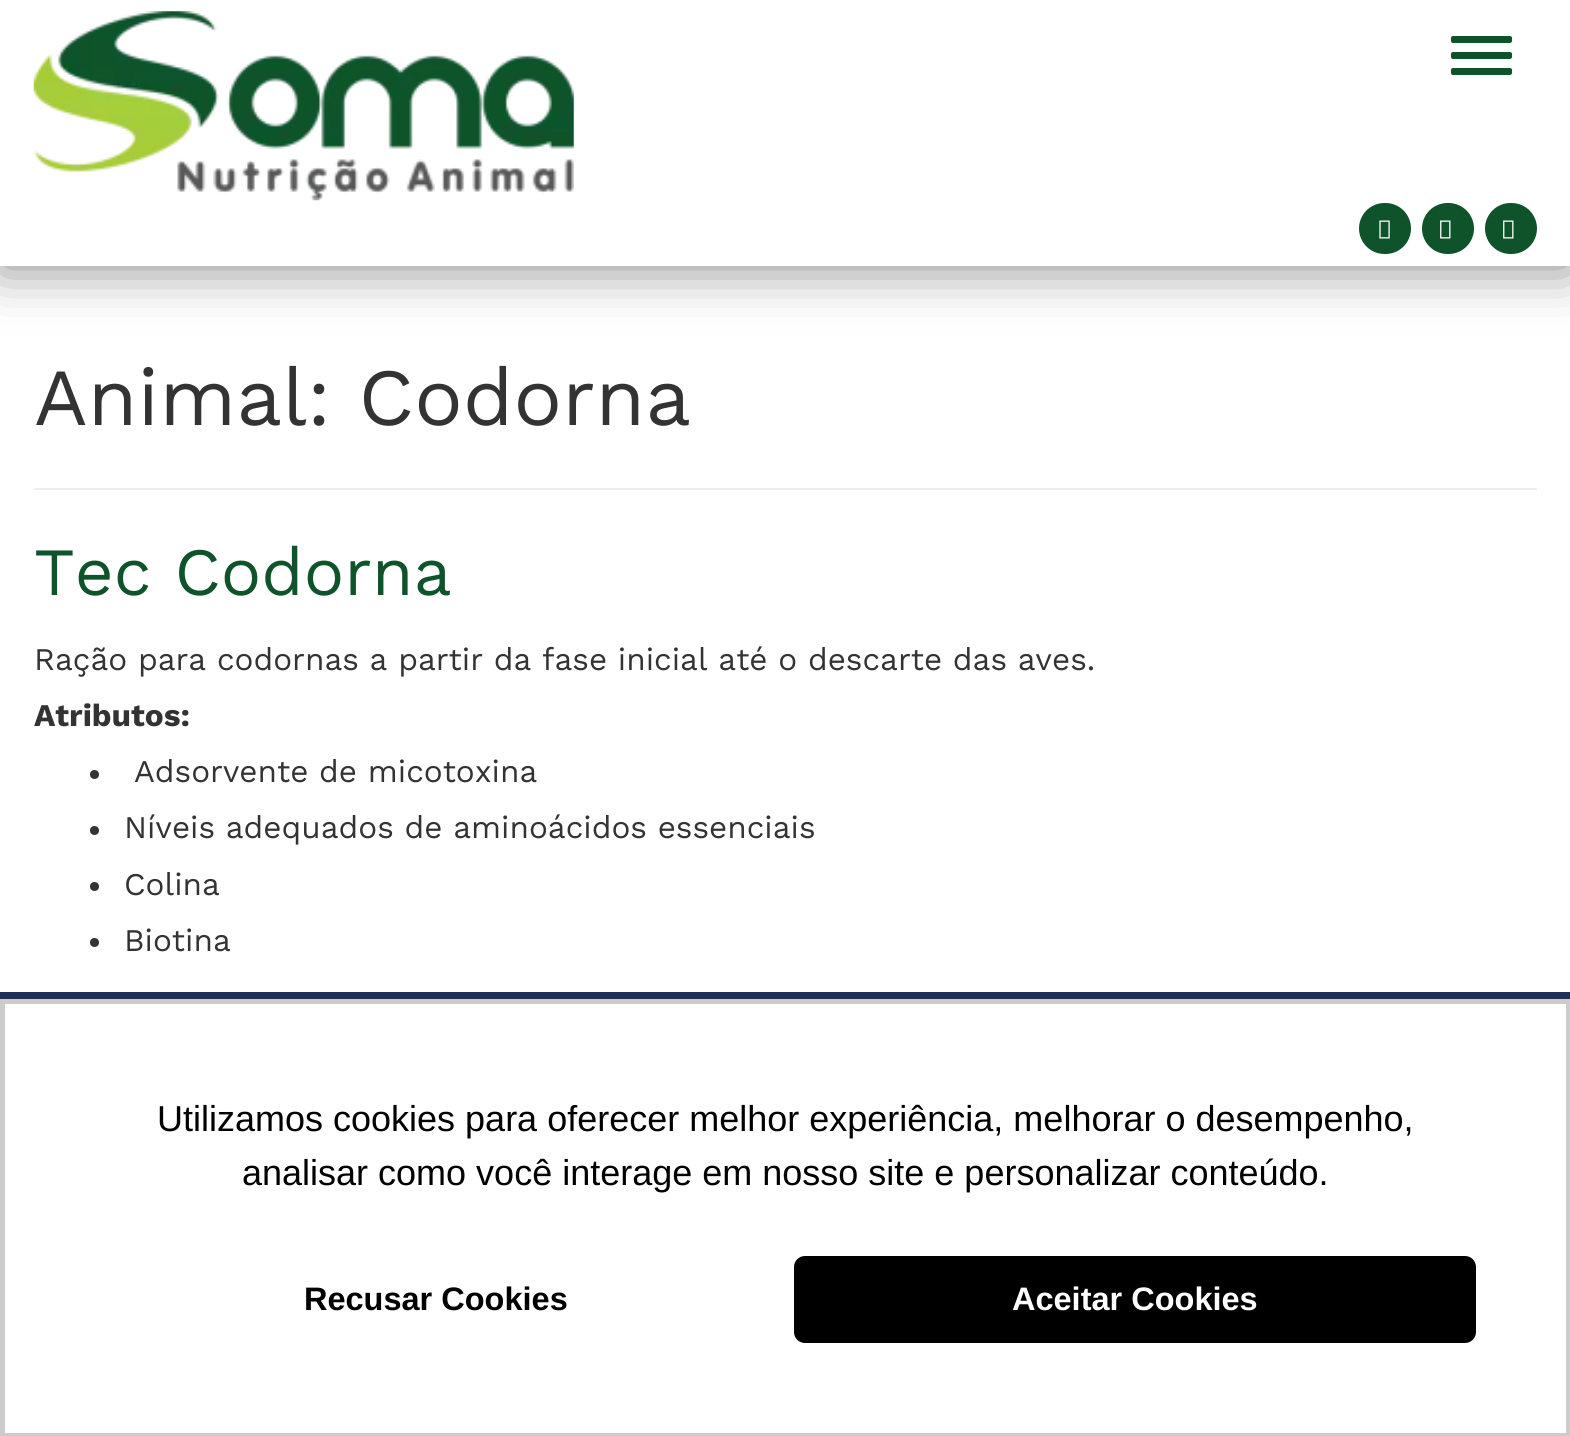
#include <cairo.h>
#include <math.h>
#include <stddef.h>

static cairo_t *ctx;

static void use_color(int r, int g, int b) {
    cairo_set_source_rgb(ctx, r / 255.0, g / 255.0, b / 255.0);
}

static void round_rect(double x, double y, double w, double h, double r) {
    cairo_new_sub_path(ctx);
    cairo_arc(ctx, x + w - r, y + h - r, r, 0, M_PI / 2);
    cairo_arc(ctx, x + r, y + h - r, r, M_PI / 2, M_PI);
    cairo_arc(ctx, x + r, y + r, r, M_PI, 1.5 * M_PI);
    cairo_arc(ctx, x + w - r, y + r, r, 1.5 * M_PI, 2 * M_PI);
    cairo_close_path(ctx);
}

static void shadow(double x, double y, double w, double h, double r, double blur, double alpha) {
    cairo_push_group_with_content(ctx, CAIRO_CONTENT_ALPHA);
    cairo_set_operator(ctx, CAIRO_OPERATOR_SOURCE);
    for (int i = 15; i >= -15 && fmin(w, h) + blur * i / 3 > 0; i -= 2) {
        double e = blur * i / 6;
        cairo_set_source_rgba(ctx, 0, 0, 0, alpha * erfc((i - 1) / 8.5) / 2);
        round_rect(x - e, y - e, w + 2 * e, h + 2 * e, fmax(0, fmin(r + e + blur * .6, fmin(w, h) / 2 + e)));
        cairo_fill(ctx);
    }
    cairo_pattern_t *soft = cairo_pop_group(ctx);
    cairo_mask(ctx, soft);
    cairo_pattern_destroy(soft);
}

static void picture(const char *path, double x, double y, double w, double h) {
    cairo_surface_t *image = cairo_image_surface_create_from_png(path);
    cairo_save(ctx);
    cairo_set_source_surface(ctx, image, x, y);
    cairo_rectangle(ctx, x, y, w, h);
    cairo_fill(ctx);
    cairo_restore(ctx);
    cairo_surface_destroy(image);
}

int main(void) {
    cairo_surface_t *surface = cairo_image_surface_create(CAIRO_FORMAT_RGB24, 1570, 1436);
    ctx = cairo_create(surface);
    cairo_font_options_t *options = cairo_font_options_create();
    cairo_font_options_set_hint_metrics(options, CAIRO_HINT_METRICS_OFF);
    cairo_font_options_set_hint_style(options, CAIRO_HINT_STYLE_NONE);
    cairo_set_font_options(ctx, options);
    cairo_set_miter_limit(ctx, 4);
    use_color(255, 255, 255);
    cairo_paint(ctx);
    use_color(0, 0, 0);
    shadow(0, 0, 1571, 266, 0, 28, 0.5);
    use_color(255, 255, 255);
    cairo_rectangle(ctx, 0, 0, 1570, 266);
    cairo_fill(ctx);
    picture("img1.png", 33, 11, 541, 190);
    use_color(14, 83, 42);
    round_rect(1451, 36, 61, 7, 2);
    cairo_fill(ctx);
    round_rect(1451, 52, 61, 7, 2);
    cairo_fill(ctx);
    round_rect(1451, 68, 61, 7, 2);
    cairo_fill(ctx);
    round_rect(1359, 203, 52, 51, 25.5);
    cairo_fill(ctx);
    picture("img2.png", 1379, 220, 11, 19);
    round_rect(1422, 203, 52, 51, 25.5);
    cairo_fill(ctx);
    picture("img3.png", 1440, 220, 11, 19);
    round_rect(1485, 203, 52, 51, 25.5);
    cairo_fill(ctx);
    picture("img3.png", 1503, 220, 11, 19);
    use_color(238, 238, 238);
    cairo_rectangle(ctx, 34, 488, 1503, 2);
    cairo_fill(ctx);
    cairo_select_font_face(ctx, "Work Sans", CAIRO_FONT_SLANT_NORMAL, CAIRO_FONT_WEIGHT_NORMAL);
    cairo_set_font_size(ctx, 81);
    use_color(51, 51, 51);
    cairo_move_to(ctx, 34, 425);
    cairo_show_text(ctx, "Animal: Codorna");
    cairo_set_font_size(ctx, 67.5);
    use_color(14, 83, 42);
    cairo_move_to(ctx, 34, 595);
    cairo_show_text(ctx, "Tec Codorna");
    cairo_set_font_size(ctx, 31.5);
    use_color(51, 51, 51);
    cairo_move_to(ctx, 34, 670);
    cairo_show_text(ctx, "Ração para codornas a partir da fase inicial até o descarte das aves.");
    cairo_select_font_face(ctx, "Work Sans", CAIRO_FONT_SLANT_NORMAL, CAIRO_FONT_WEIGHT_BOLD);
    cairo_move_to(ctx, 34, 726);
    cairo_show_text(ctx, "Atributos:");
    cairo_new_path(ctx);
    cairo_arc(ctx, 94.5, 774.5, 4.5, 0, 2 * M_PI);
    cairo_fill(ctx);
    cairo_select_font_face(ctx, "Work Sans", CAIRO_FONT_SLANT_NORMAL, CAIRO_FONT_WEIGHT_NORMAL);
    cairo_move_to(ctx, 134, 782);
    cairo_show_text(ctx, "Adsorvente de micotoxina");
    cairo_new_path(ctx);
    cairo_arc(ctx, 94.5, 830.5, 4.5, 0, 2 * M_PI);
    cairo_fill(ctx);
    cairo_move_to(ctx, 124, 838);
    cairo_show_text(ctx, "Níveis adequados de aminoácidos essenciais");
    cairo_new_path(ctx);
    cairo_arc(ctx, 94.5, 886.5, 4.5, 0, 2 * M_PI);
    cairo_fill(ctx);
    cairo_move_to(ctx, 124, 895);
    cairo_show_text(ctx, "Colina");
    cairo_new_path(ctx);
    cairo_arc(ctx, 94.5, 942.5, 4.5, 0, 2 * M_PI);
    cairo_fill(ctx);
    cairo_move_to(ctx, 124, 951);
    cairo_show_text(ctx, "Biotina");
    use_color(30, 48, 83);
    cairo_rectangle(ctx, 0, 992, 1570, 7);
    cairo_fill(ctx);
    cairo_rectangle(ctx, 2.5, 1001.5, 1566, 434);
    use_color(204, 204, 204);
    cairo_set_line_width(ctx, 5);
    cairo_stroke(ctx);
    cairo_select_font_face(ctx, "Liberation Sans", CAIRO_FONT_SLANT_NORMAL, CAIRO_FONT_WEIGHT_NORMAL);
    cairo_set_font_size(ctx, 36);
    use_color(0, 0, 0);
    cairo_move_to(ctx, 157, 1131);
    cairo_show_text(ctx, "Utilizamos cookies para oferecer melhor experiência, melhorar o desempenho,");
    cairo_move_to(ctx, 242, 1185);
    cairo_show_text(ctx, "analisar como você interage em nosso site e personalizar conteúdo.");
    cairo_select_font_face(ctx, "Liberation Sans", CAIRO_FONT_SLANT_NORMAL, CAIRO_FONT_WEIGHT_BOLD);
    cairo_set_font_size(ctx, 32.5);
    cairo_move_to(ctx, 304, 1310);
    cairo_show_text(ctx, "Recusar Cookies");
    round_rect(794, 1256, 682, 87, 11);
    cairo_fill(ctx);
    use_color(255, 255, 255);
    cairo_move_to(ctx, 1012, 1310);
    cairo_show_text(ctx, "Aceitar Cookies");
    cairo_surface_write_to_png(surface, "result.png");
    cairo_font_options_destroy(options);
    cairo_destroy(ctx);
    cairo_surface_destroy(surface);
    return 0;
}
